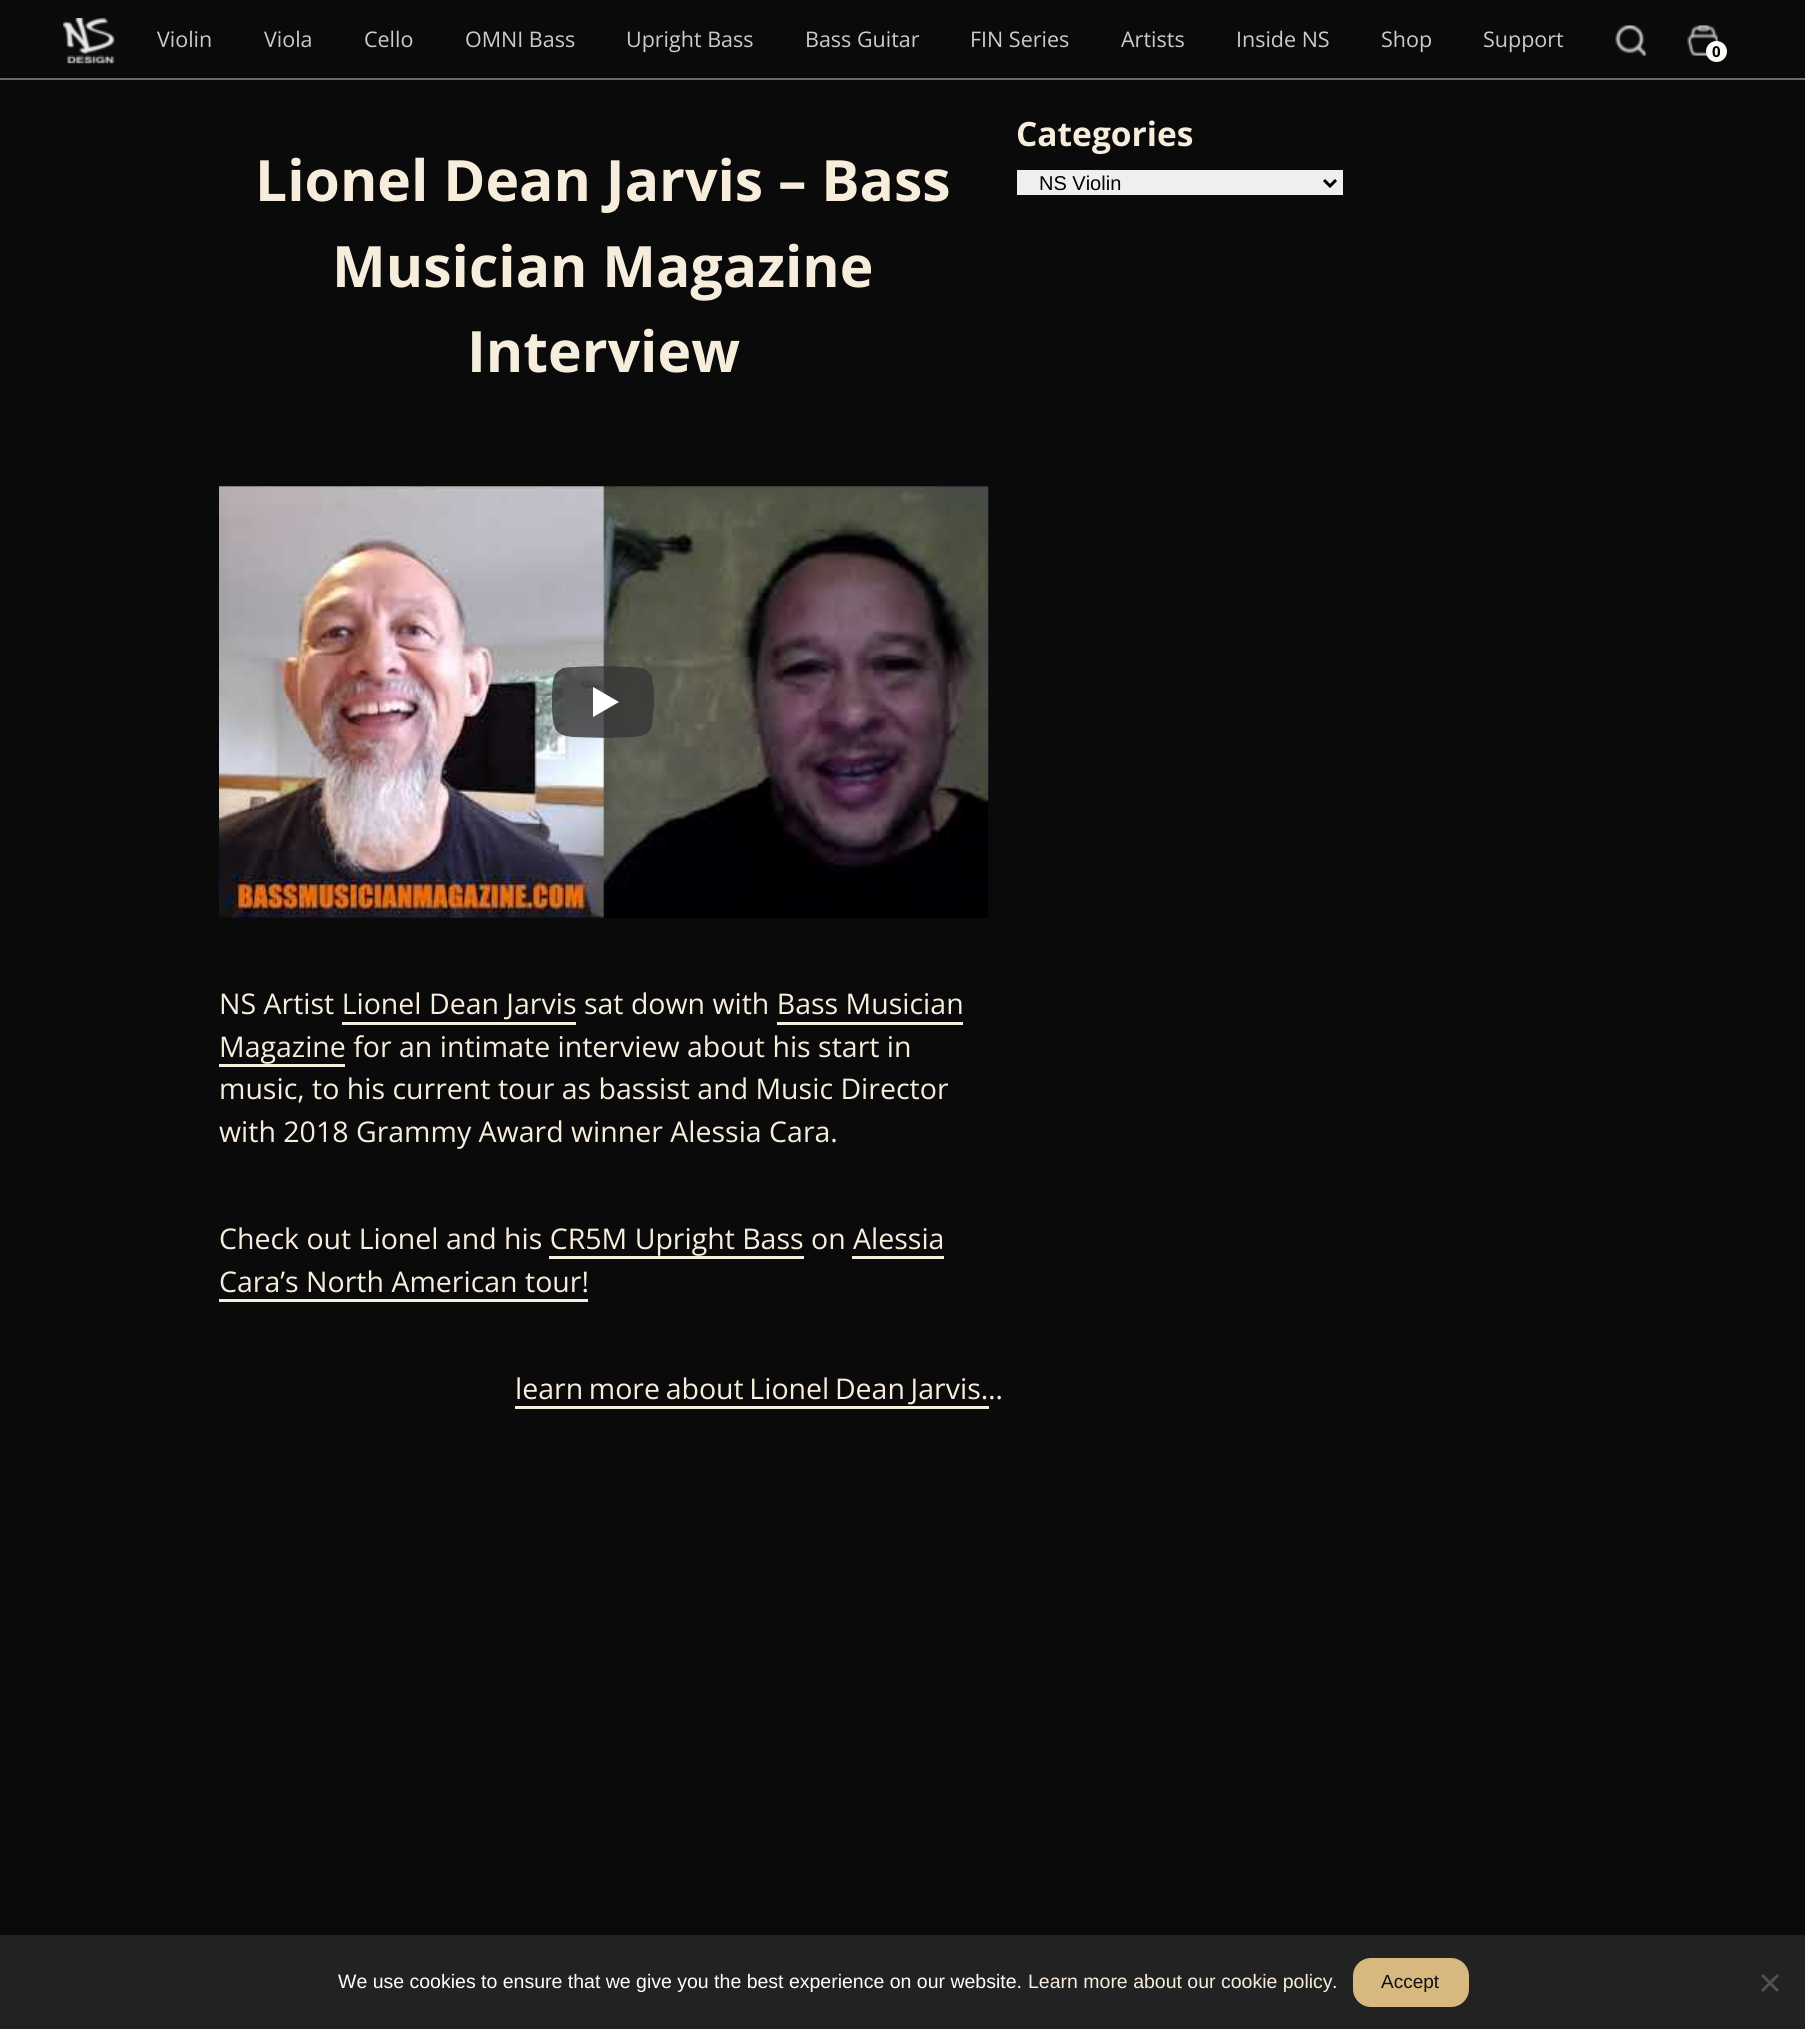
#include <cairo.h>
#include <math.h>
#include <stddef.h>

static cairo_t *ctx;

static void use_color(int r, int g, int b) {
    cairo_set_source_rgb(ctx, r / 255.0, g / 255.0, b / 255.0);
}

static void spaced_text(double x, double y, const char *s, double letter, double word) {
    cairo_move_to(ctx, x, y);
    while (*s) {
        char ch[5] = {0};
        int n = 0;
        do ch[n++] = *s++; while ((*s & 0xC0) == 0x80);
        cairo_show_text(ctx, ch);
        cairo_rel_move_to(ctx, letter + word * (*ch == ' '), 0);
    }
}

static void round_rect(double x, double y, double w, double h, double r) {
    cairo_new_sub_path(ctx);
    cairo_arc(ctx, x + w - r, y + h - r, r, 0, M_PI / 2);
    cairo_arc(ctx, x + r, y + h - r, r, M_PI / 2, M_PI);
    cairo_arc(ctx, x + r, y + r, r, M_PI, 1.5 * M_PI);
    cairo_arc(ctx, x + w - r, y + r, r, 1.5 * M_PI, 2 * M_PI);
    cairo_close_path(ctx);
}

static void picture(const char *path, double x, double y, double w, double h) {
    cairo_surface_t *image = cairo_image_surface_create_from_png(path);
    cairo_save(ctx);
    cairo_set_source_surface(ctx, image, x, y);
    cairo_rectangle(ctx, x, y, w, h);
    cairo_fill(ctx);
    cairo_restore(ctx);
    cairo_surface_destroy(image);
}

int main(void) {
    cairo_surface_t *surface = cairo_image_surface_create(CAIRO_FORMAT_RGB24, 1805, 2029);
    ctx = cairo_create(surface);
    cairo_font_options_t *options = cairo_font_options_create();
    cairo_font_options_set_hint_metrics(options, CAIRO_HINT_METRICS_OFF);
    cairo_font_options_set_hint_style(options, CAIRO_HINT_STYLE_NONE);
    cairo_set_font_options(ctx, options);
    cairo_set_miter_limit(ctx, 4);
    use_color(10, 10, 10);
    cairo_paint(ctx);
    use_color(107, 106, 105);
    cairo_rectangle(ctx, 0, 78, 1805, 2);
    cairo_fill(ctx);
    picture("img1.png", 63, 18, 52, 46);
    cairo_select_font_face(ctx, "Open Sans", CAIRO_FONT_SLANT_ITALIC, CAIRO_FONT_WEIGHT_NORMAL);
    cairo_set_font_size(ctx, 21.5);
    use_color(204, 203, 200);
    cairo_move_to(ctx, 157, 47);
    cairo_show_text(ctx, "Violin");
    cairo_move_to(ctx, 264, 47);
    cairo_show_text(ctx, "Viola");
    cairo_move_to(ctx, 364, 47);
    cairo_show_text(ctx, "Cello");
    cairo_move_to(ctx, 465, 47);
    cairo_show_text(ctx, "OMNI Bass");
    cairo_move_to(ctx, 626, 47);
    cairo_show_text(ctx, "Upright Bass");
    cairo_move_to(ctx, 805, 47);
    cairo_show_text(ctx, "Bass Guitar");
    cairo_move_to(ctx, 970, 47);
    cairo_show_text(ctx, "FIN Series");
    cairo_move_to(ctx, 1121, 47);
    cairo_show_text(ctx, "Artists");
    cairo_move_to(ctx, 1236, 47);
    cairo_show_text(ctx, "Inside NS");
    cairo_move_to(ctx, 1381, 47);
    cairo_show_text(ctx, "Shop");
    cairo_move_to(ctx, 1483, 47);
    cairo_show_text(ctx, "Support");
    picture("img2.png", 1615, 25, 31, 31);
    picture("img3.png", 1687, 25, 31, 31);
    use_color(252, 251, 247);
    cairo_arc(ctx, 1716.5, 51.5, 10.5, 0, 2 * M_PI);
    cairo_fill(ctx);
    cairo_select_font_face(ctx, "Open Sans", CAIRO_FONT_SLANT_ITALIC, CAIRO_FONT_WEIGHT_BOLD);
    cairo_set_font_size(ctx, 15);
    use_color(0, 0, 0);
    cairo_move_to(ctx, 1712, 57);
    cairo_show_text(ctx, "0");
    cairo_set_font_size(ctx, 57);
    use_color(247, 237, 220);
    cairo_move_to(ctx, 255, 201);
    cairo_show_text(ctx, "Lionel Dean Jarvis – Bass");
    cairo_move_to(ctx, 332, 287);
    cairo_show_text(ctx, "Musician Magazine");
    cairo_move_to(ctx, 467, 372);
    cairo_show_text(ctx, "Interview");
    picture("img4.png", 219, 486, 770, 432);
    use_color(255, 255, 255);
    cairo_new_path(ctx);
    cairo_move_to(ctx, 593, 717.5);
    cairo_line_to(ctx, 593, 686.5);
    cairo_line_to(ctx, 619.5, 702);
    cairo_close_path(ctx);
    cairo_fill(ctx);
    cairo_set_source_rgba(ctx, 0.212, 0.212, 0.212, 0.8);
    cairo_new_path(ctx);
    cairo_move_to(ctx, 652, 677);
    cairo_curve_to(ctx, 651, 674, 648, 671, 645, 669);
    cairo_curve_to(ctx, 635, 665, 575, 666, 563, 668);
    cairo_curve_to(ctx, 561, 669, 558, 671, 556, 673);
    cairo_curve_to(ctx, 551, 680, 552, 703, 552, 711);
    cairo_curve_to(ctx, 554, 729, 554, 735, 573, 737);
    cairo_line_to(ctx, 608, 738);
    cairo_line_to(ctx, 633, 737);
    cairo_curve_to(ctx, 651, 735, 652, 731, 653, 714);
    cairo_curve_to(ctx, 655, 702, 654, 690, 652, 677);
    cairo_move_to(ctx, 593, 717);
    cairo_line_to(ctx, 593, 687);
    cairo_line_to(ctx, 619, 702);
    cairo_close_path(ctx);
    cairo_fill(ctx);
    cairo_select_font_face(ctx, "Open Sans", CAIRO_FONT_SLANT_ITALIC, CAIRO_FONT_WEIGHT_NORMAL);
    cairo_set_font_size(ctx, 28.5);
    use_color(247, 237, 220);
    cairo_move_to(ctx, 219, 1014);
    cairo_show_text(ctx, "NS Artist Lionel Dean Jarvis sat down with Bass Musician");
    cairo_rectangle(ctx, 342, 1022, 234, 3);
    cairo_fill(ctx);
    cairo_move_to(ctx, 219, 1057);
    cairo_show_text(ctx, "Magazine for an intimate interview about his start in");
    cairo_rectangle(ctx, 777, 1022, 186, 3);
    cairo_fill(ctx);
    cairo_rectangle(ctx, 219, 1064, 126, 3);
    cairo_fill(ctx);
    cairo_move_to(ctx, 219, 1099);
    cairo_show_text(ctx, "music, to his current tour as bassist and Music Director");
    cairo_move_to(ctx, 219, 1142);
    cairo_show_text(ctx, "with 2018 Grammy Award winner Alessia Cara.");
    cairo_move_to(ctx, 219, 1249);
    cairo_show_text(ctx, "Check out Lionel and his CR5M Upright Bass on Alessia");
    cairo_rectangle(ctx, 549, 1256, 255, 3);
    cairo_fill(ctx);
    cairo_move_to(ctx, 219, 1292);
    cairo_show_text(ctx, "Cara’s North American tour!");
    cairo_rectangle(ctx, 852, 1256, 92, 3);
    cairo_fill(ctx);
    cairo_rectangle(ctx, 219, 1299, 369, 3);
    cairo_fill(ctx);
    spaced_text(515, 1399, "learn more about Lionel Dean Jarvis…", 0, -1.75);
    cairo_rectangle(ctx, 515, 1406, 474, 3);
    cairo_fill(ctx);
    cairo_select_font_face(ctx, "Open Sans", CAIRO_FONT_SLANT_ITALIC, CAIRO_FONT_WEIGHT_BOLD);
    cairo_set_font_size(ctx, 33.5);
    cairo_move_to(ctx, 1016, 146);
    cairo_show_text(ctx, "Categories");
    use_color(239, 239, 239);
    cairo_rectangle(ctx, 1017, 170, 326, 25);
    cairo_fill(ctx);
    cairo_new_path(ctx);
    cairo_move_to(ctx, 1324, 180);
    cairo_line_to(ctx, 1330, 186);
    cairo_line_to(ctx, 1336, 180);
    use_color(0, 0, 0);
    cairo_set_line_width(ctx, 3);
    cairo_stroke(ctx);
    cairo_select_font_face(ctx, "Liberation Sans", CAIRO_FONT_SLANT_NORMAL, CAIRO_FONT_WEIGHT_NORMAL);
    cairo_set_font_size(ctx, 20);
    cairo_move_to(ctx, 1039, 190);
    cairo_show_text(ctx, "NS Violin");
    use_color(34, 34, 34);
    cairo_rectangle(ctx, 0, 1935, 1805, 94);
    cairo_fill(ctx);
    cairo_set_font_size(ctx, 19.5);
    use_color(255, 255, 255);
    cairo_move_to(ctx, 338, 1988);
    cairo_show_text(ctx, "We use cookies to ensure that we give you the best experience on our website.");
    use_color(247, 237, 220);
    cairo_move_to(ctx, 1028, 1988);
    cairo_show_text(ctx, "Learn more about our cookie policy");
    use_color(255, 255, 255);
    cairo_move_to(ctx, 1332, 1988);
    cairo_show_text(ctx, ".");
    use_color(215, 184, 126);
    round_rect(1353, 1958, 116, 49, 18);
    cairo_fill(ctx);
    cairo_set_font_size(ctx, 19);
    use_color(17, 17, 17);
    cairo_move_to(ctx, 1381, 1988);
    cairo_show_text(ctx, "Accept");
    use_color(81, 81, 81);
    cairo_new_path(ctx);
    cairo_move_to(ctx, 1777, 1974);
    cairo_line_to(ctx, 1779, 1976);
    cairo_line_to(ctx, 1763, 1992);
    cairo_line_to(ctx, 1761, 1990);
    cairo_close_path(ctx);
    cairo_fill(ctx);
    cairo_new_path(ctx);
    cairo_move_to(ctx, 1761, 1976);
    cairo_line_to(ctx, 1763, 1974);
    cairo_line_to(ctx, 1779, 1990);
    cairo_line_to(ctx, 1777, 1992);
    cairo_close_path(ctx);
    cairo_fill(ctx);
    cairo_surface_write_to_png(surface, "result.png");
    cairo_font_options_destroy(options);
    cairo_destroy(ctx);
    cairo_surface_destroy(surface);
    return 0;
}
